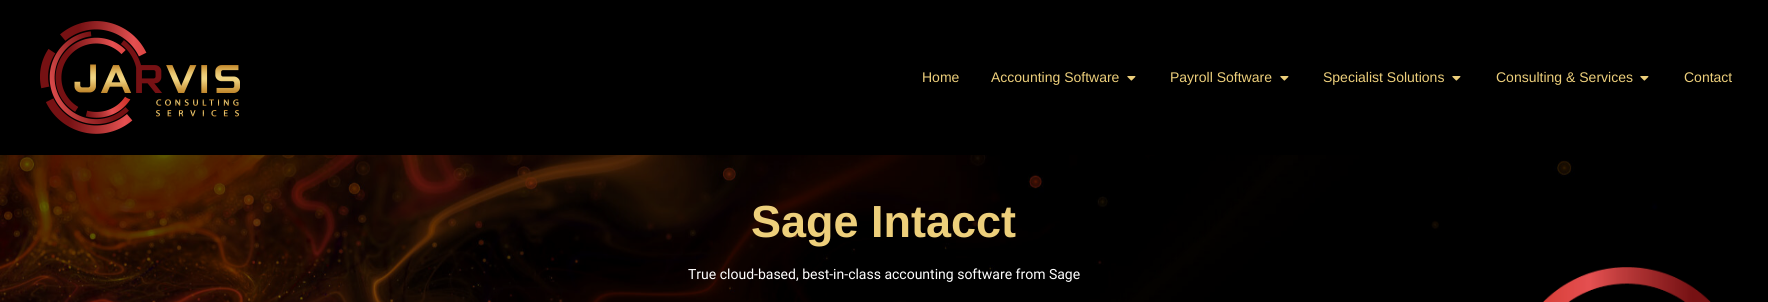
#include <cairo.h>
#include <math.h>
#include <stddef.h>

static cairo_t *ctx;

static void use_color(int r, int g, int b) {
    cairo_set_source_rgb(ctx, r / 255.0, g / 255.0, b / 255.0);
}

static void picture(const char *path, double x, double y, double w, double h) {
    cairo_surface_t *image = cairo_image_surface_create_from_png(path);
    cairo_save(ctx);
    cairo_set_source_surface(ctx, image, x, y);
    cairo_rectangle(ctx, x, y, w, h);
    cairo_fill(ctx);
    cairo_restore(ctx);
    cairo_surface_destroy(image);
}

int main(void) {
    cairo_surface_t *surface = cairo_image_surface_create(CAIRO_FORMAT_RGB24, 1768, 302);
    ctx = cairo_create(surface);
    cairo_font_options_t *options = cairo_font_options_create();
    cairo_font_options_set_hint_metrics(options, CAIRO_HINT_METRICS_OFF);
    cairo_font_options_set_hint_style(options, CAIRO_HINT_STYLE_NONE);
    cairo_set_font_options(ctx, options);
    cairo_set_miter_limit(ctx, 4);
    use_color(0, 0, 0);
    cairo_paint(ctx);
    picture("img1.png", 40, 21, 200, 113);
    cairo_select_font_face(ctx, "Liberation Sans", CAIRO_FONT_SLANT_NORMAL, CAIRO_FONT_WEIGHT_NORMAL);
    cairo_set_font_size(ctx, 14);
    use_color(237, 207, 123);
    cairo_move_to(ctx, 922, 82);
    cairo_show_text(ctx, "Home");
    cairo_move_to(ctx, 991, 82);
    cairo_show_text(ctx, "Accounting Software");
    picture("img2.png", 1127, 76, 9, 5);
    cairo_move_to(ctx, 1170, 82);
    cairo_show_text(ctx, "Payroll Software");
    picture("img2.png", 1280, 76, 9, 5);
    cairo_move_to(ctx, 1323, 82);
    cairo_show_text(ctx, "Specialist Solutions");
    picture("img2.png", 1452, 76, 9, 5);
    cairo_move_to(ctx, 1496, 82);
    cairo_show_text(ctx, "Consulting & Services");
    picture("img2.png", 1640, 76, 9, 5);
    cairo_move_to(ctx, 1684, 82);
    cairo_show_text(ctx, "Contact");
    picture("img3.png", 0, 155, 1768, 147);
    cairo_select_font_face(ctx, "Liberation Sans", CAIRO_FONT_SLANT_NORMAL, CAIRO_FONT_WEIGHT_BOLD);
    cairo_set_font_size(ctx, 45);
    cairo_move_to(ctx, 751, 237);
    cairo_show_text(ctx, "Sage Intacct");
    cairo_select_font_face(ctx, "Roboto", CAIRO_FONT_SLANT_NORMAL, CAIRO_FONT_WEIGHT_NORMAL);
    cairo_set_font_size(ctx, 14);
    use_color(255, 255, 255);
    cairo_move_to(ctx, 688, 279);
    cairo_show_text(ctx, "True cloud-based, best-in-class accounting software from Sage");
    picture("img4.png", 1543, 267, 168, 35);
    cairo_surface_write_to_png(surface, "result.png");
    cairo_font_options_destroy(options);
    cairo_destroy(ctx);
    cairo_surface_destroy(surface);
    return 0;
}
